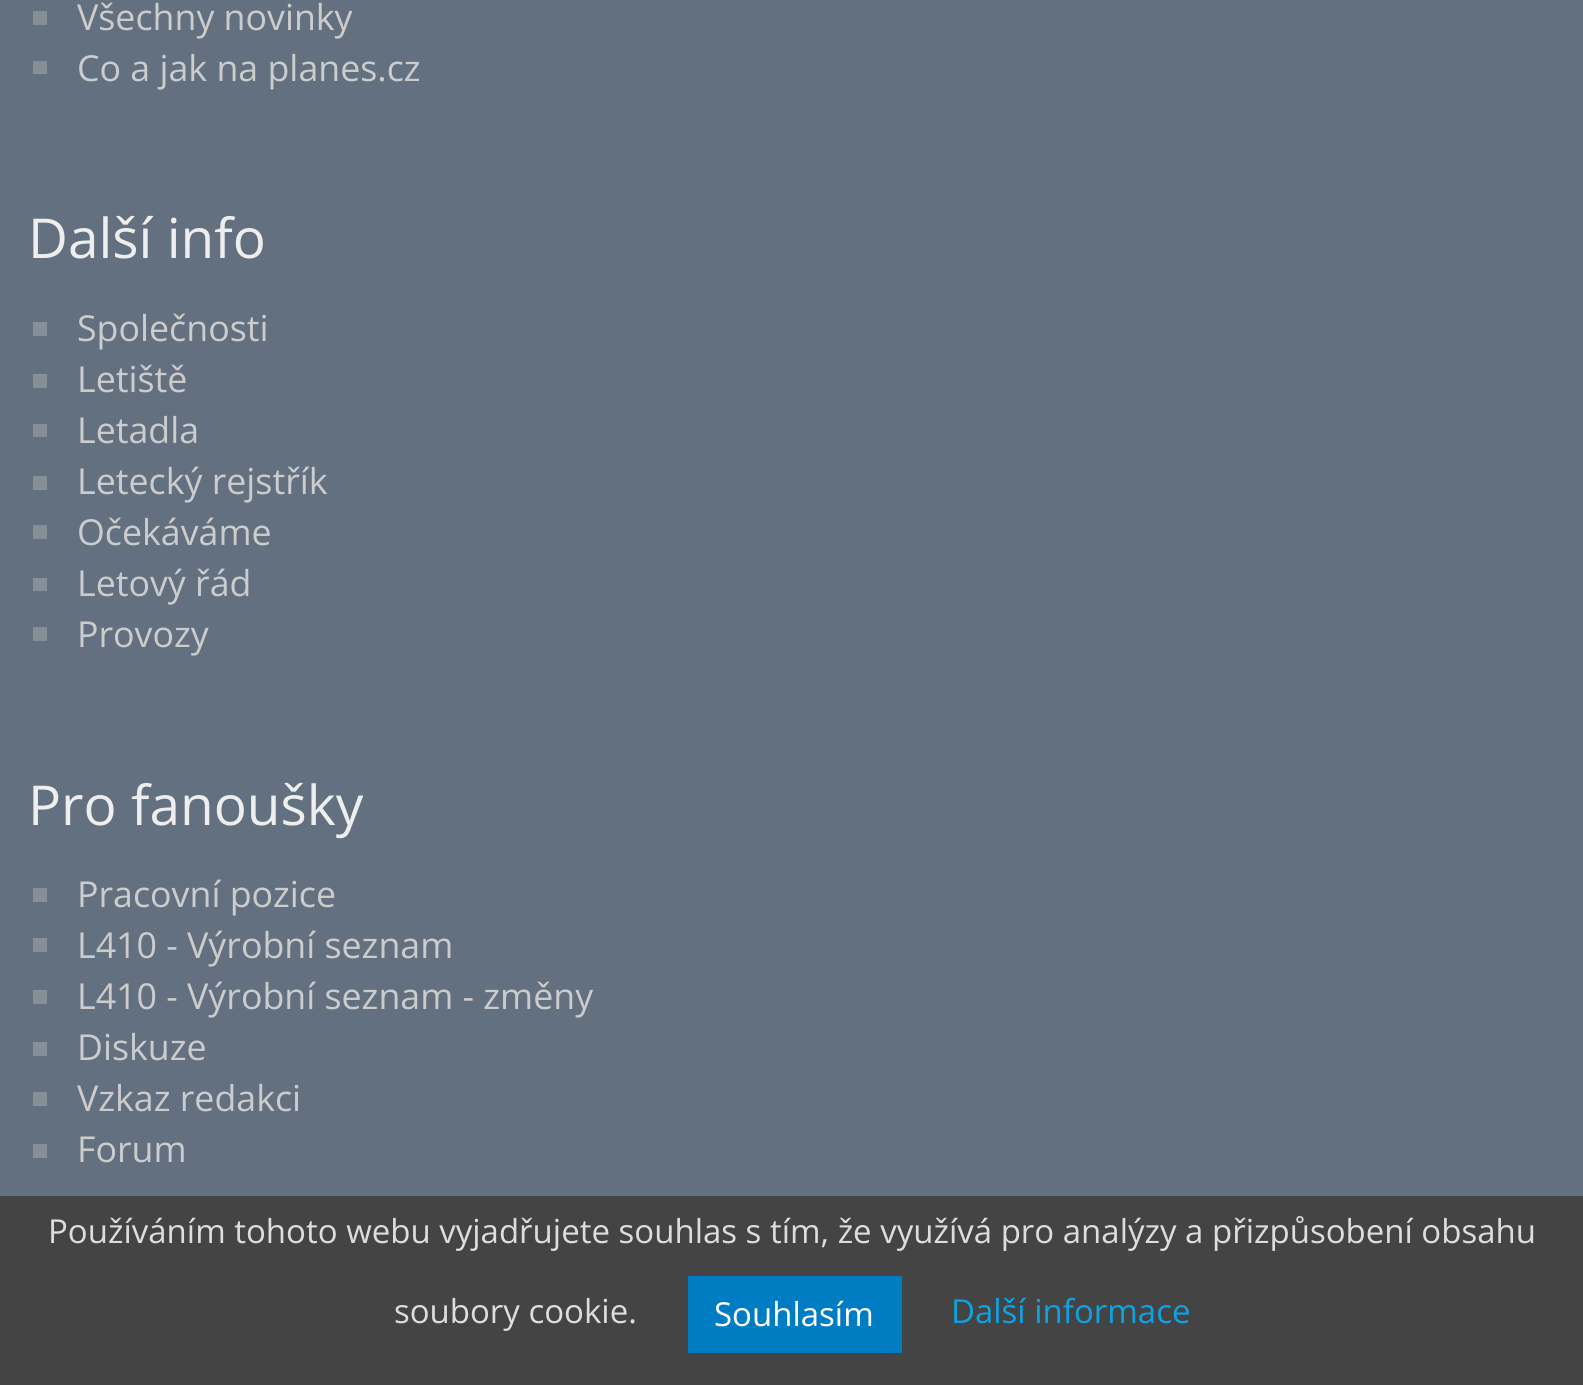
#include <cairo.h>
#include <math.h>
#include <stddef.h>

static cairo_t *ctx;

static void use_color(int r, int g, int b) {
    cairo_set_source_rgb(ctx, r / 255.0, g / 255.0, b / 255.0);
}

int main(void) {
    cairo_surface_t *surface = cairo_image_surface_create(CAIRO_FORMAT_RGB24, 1583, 1385);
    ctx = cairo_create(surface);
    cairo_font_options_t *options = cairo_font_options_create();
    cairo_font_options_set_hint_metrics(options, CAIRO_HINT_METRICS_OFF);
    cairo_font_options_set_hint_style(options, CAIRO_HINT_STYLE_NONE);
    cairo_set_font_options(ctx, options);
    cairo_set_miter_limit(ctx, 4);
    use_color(98, 112, 127);
    cairo_paint(ctx);
    use_color(134, 142, 150);
    cairo_rectangle(ctx, 33, 11, 14, 14);
    cairo_fill(ctx);
    cairo_select_font_face(ctx, "Open Sans", CAIRO_FONT_SLANT_NORMAL, CAIRO_FONT_WEIGHT_NORMAL);
    cairo_set_font_size(ctx, 35.75);
    use_color(204, 204, 204);
    cairo_move_to(ctx, 77, 30);
    cairo_show_text(ctx, "Všechny novinky");
    use_color(134, 142, 150);
    cairo_rectangle(ctx, 33, 61, 14, 13);
    cairo_fill(ctx);
    use_color(204, 204, 204);
    cairo_move_to(ctx, 77, 81);
    cairo_show_text(ctx, "Co a jak na planes.cz");
    cairo_set_font_size(ctx, 55);
    use_color(238, 238, 238);
    cairo_move_to(ctx, 28, 258);
    cairo_show_text(ctx, "Další info");
    use_color(134, 142, 150);
    cairo_rectangle(ctx, 33, 322, 14, 14);
    cairo_fill(ctx);
    cairo_set_font_size(ctx, 35.75);
    use_color(204, 204, 204);
    cairo_move_to(ctx, 77, 341);
    cairo_show_text(ctx, "Společnosti");
    use_color(134, 142, 150);
    cairo_rectangle(ctx, 33, 374, 14, 14);
    cairo_fill(ctx);
    use_color(204, 204, 204);
    cairo_move_to(ctx, 77, 392);
    cairo_show_text(ctx, "Letiště");
    use_color(134, 142, 150);
    cairo_rectangle(ctx, 33, 424, 14, 13);
    cairo_fill(ctx);
    use_color(204, 204, 204);
    cairo_move_to(ctx, 77, 443);
    cairo_show_text(ctx, "Letadla");
    use_color(134, 142, 150);
    cairo_rectangle(ctx, 33, 476, 14, 14);
    cairo_fill(ctx);
    use_color(204, 204, 204);
    cairo_move_to(ctx, 77, 494);
    cairo_show_text(ctx, "Letecký rejstřík");
    use_color(134, 142, 150);
    cairo_rectangle(ctx, 33, 525, 14, 14);
    cairo_fill(ctx);
    use_color(204, 204, 204);
    cairo_move_to(ctx, 77, 545);
    cairo_show_text(ctx, "Očekáváme");
    use_color(134, 142, 150);
    cairo_rectangle(ctx, 33, 578, 14, 13);
    cairo_fill(ctx);
    use_color(204, 204, 204);
    cairo_move_to(ctx, 77, 596);
    cairo_show_text(ctx, "Letový řád");
    use_color(134, 142, 150);
    cairo_rectangle(ctx, 33, 627, 14, 14);
    cairo_fill(ctx);
    use_color(204, 204, 204);
    cairo_move_to(ctx, 77, 647);
    cairo_show_text(ctx, "Provozy");
    cairo_set_font_size(ctx, 55);
    use_color(238, 238, 238);
    cairo_move_to(ctx, 28, 825);
    cairo_show_text(ctx, "Pro fanoušky");
    use_color(134, 142, 150);
    cairo_rectangle(ctx, 33, 888, 14, 14);
    cairo_fill(ctx);
    cairo_set_font_size(ctx, 35.75);
    use_color(204, 204, 204);
    cairo_move_to(ctx, 77, 907);
    cairo_show_text(ctx, "Pracovní pozice");
    use_color(134, 142, 150);
    cairo_rectangle(ctx, 33, 938, 14, 14);
    cairo_fill(ctx);
    use_color(204, 204, 204);
    cairo_move_to(ctx, 77, 958);
    cairo_show_text(ctx, "L410 - Výrobní seznam");
    use_color(134, 142, 150);
    cairo_rectangle(ctx, 33, 990, 14, 14);
    cairo_fill(ctx);
    use_color(204, 204, 204);
    cairo_move_to(ctx, 77, 1009);
    cairo_show_text(ctx, "L410 - Výrobní seznam - změny");
    use_color(134, 142, 150);
    cairo_rectangle(ctx, 33, 1042, 14, 14);
    cairo_fill(ctx);
    use_color(204, 204, 204);
    cairo_move_to(ctx, 77, 1060);
    cairo_show_text(ctx, "Diskuze");
    use_color(134, 142, 150);
    cairo_rectangle(ctx, 33, 1092, 14, 14);
    cairo_fill(ctx);
    use_color(204, 204, 204);
    cairo_move_to(ctx, 77, 1111);
    cairo_show_text(ctx, "Vzkaz redakci");
    use_color(134, 142, 150);
    cairo_rectangle(ctx, 33, 1144, 14, 14);
    cairo_fill(ctx);
    use_color(204, 204, 204);
    cairo_move_to(ctx, 77, 1162);
    cairo_show_text(ctx, "Forum");
    use_color(68, 68, 68);
    cairo_rectangle(ctx, 0, 1196, 1583, 189);
    cairo_fill(ctx);
    cairo_set_font_size(ctx, 33);
    use_color(221, 221, 221);
    cairo_move_to(ctx, 48, 1243);
    cairo_show_text(ctx, "Používáním tohoto webu vyjadřujete souhlas s tím, že využívá pro analýzy a přizpůsobení obsahu");
    cairo_move_to(ctx, 394, 1323);
    cairo_show_text(ctx, "soubory cookie.");
    use_color(0, 125, 194);
    cairo_rectangle(ctx, 688, 1276, 214, 77);
    cairo_fill(ctx);
    use_color(255, 255, 255);
    cairo_move_to(ctx, 714, 1326);
    cairo_show_text(ctx, "Souhlasím");
    use_color(13, 163, 226);
    cairo_move_to(ctx, 951, 1323);
    cairo_show_text(ctx, "Další informace");
    cairo_surface_write_to_png(surface, "result.png");
    cairo_font_options_destroy(options);
    cairo_destroy(ctx);
    cairo_surface_destroy(surface);
    return 0;
}
